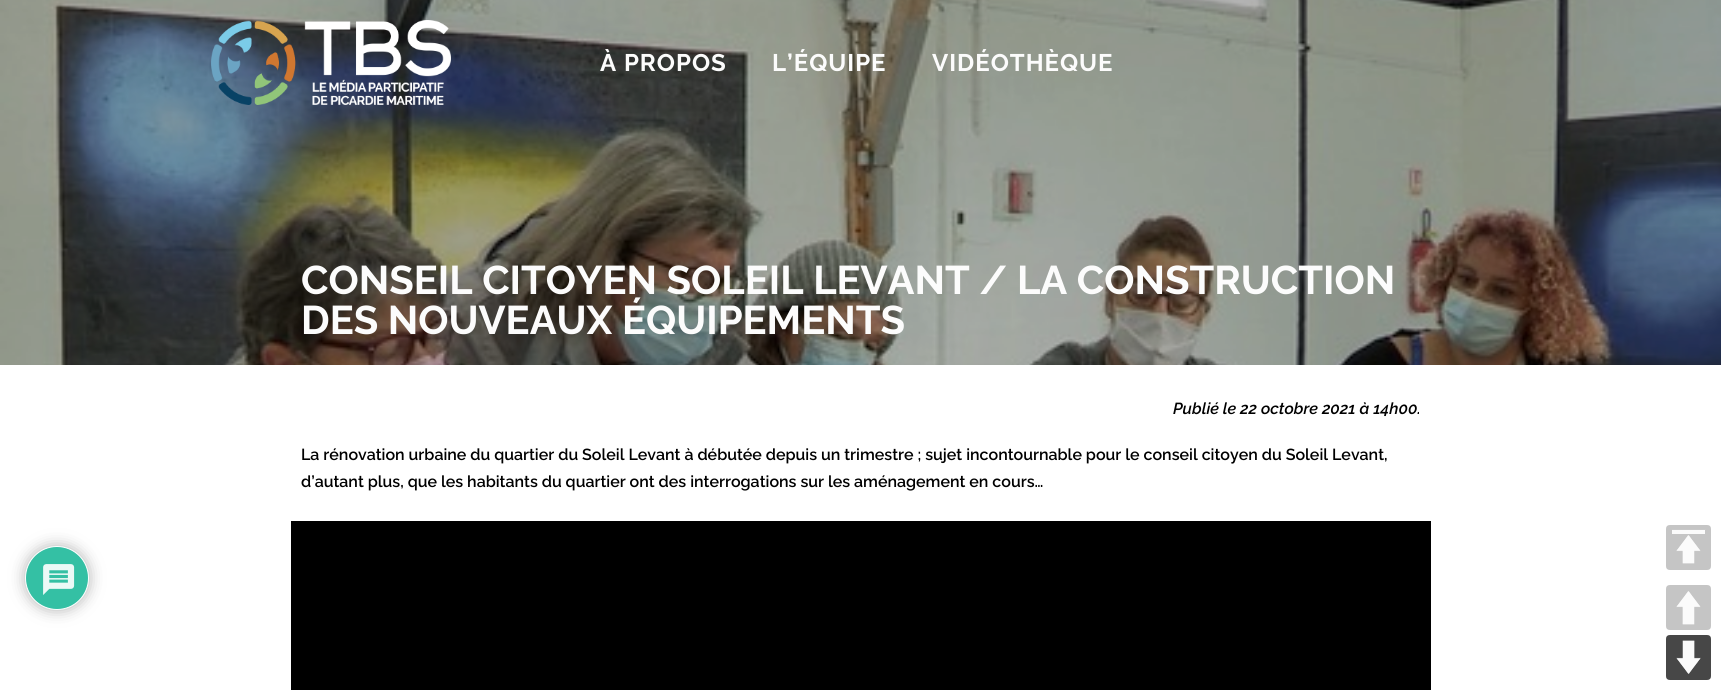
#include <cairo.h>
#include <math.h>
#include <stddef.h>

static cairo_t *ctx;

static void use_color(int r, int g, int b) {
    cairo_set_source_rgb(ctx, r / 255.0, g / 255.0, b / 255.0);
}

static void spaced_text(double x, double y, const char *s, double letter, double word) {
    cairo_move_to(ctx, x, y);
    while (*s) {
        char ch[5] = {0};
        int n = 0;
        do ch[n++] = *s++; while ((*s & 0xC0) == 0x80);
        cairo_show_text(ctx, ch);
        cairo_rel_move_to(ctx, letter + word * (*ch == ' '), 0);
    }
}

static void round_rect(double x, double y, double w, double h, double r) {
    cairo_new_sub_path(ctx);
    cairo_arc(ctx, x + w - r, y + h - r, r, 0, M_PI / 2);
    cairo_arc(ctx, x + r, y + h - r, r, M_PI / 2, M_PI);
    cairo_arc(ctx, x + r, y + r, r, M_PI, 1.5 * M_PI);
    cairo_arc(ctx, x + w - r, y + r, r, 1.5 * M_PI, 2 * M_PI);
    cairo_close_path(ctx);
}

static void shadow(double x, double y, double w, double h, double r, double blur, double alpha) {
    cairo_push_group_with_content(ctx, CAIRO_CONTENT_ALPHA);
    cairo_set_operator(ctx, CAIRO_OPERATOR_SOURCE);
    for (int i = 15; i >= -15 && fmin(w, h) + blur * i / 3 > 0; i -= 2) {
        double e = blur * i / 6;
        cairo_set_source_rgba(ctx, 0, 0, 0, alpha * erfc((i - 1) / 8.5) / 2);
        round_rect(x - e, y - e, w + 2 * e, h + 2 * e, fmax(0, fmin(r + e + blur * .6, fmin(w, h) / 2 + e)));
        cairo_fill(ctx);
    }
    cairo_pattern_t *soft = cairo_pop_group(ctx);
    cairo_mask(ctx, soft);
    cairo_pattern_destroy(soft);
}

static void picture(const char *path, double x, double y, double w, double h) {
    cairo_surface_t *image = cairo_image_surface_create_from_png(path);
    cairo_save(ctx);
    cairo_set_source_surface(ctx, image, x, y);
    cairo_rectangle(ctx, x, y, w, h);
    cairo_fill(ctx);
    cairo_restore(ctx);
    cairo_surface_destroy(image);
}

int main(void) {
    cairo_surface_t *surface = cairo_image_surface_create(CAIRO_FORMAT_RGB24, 1721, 690);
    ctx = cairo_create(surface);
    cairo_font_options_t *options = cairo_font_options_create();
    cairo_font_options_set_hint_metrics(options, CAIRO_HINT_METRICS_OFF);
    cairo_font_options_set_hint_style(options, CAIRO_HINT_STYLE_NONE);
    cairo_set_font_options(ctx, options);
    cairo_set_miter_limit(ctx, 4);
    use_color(255, 255, 255);
    cairo_paint(ctx);
    picture("img1.png", 0, 0, 1721, 365);
    cairo_set_source_rgba(ctx, 0, 0, 0, 0.3);
    cairo_rectangle(ctx, 0, 0, 1721, 125);
    cairo_fill(ctx);
    picture("img2.png", 211, 20, 240, 85);
    cairo_select_font_face(ctx, "Raleway", CAIRO_FONT_SLANT_NORMAL, CAIRO_FONT_WEIGHT_BOLD);
    cairo_set_font_size(ctx, 24);
    use_color(252, 252, 252);
    spaced_text(600, 71, "À PROPOS", 1, 0);
    spaced_text(772, 71, "L’ÉQUIPE", 1, 0);
    spaced_text(932, 71, "VIDÉOTHÈQUE", 1, 0);
    cairo_set_source_rgba(ctx, 0, 0, 0, 0.3);
    cairo_rectangle(ctx, 0, 125, 1721, 240);
    cairo_fill(ctx);
    cairo_set_font_size(ctx, 40);
    use_color(252, 252, 252);
    cairo_move_to(ctx, 301, 294);
    cairo_show_text(ctx, "CONSEIL CITOYEN SOLEIL LEVANT / LA CONSTRUCTION");
    cairo_move_to(ctx, 301, 334);
    cairo_show_text(ctx, "DES NOUVEAUX ÉQUIPEMENTS");
    cairo_select_font_face(ctx, "Raleway SemiBold", CAIRO_FONT_SLANT_ITALIC, CAIRO_FONT_WEIGHT_NORMAL);
    cairo_set_font_size(ctx, 16);
    use_color(0, 0, 0);
    cairo_move_to(ctx, 1173, 414);
    cairo_show_text(ctx, "Publié le 22 octobre 2021 à 14h00.");
    cairo_select_font_face(ctx, "Raleway SemiBold", CAIRO_FONT_SLANT_NORMAL, CAIRO_FONT_WEIGHT_NORMAL);
    cairo_move_to(ctx, 301, 460);
    cairo_show_text(ctx, "La rénovation urbaine du quartier du Soleil Levant à débutée depuis un trimestre ; sujet incontournable pour le conseil citoyen du Soleil Levant,");
    cairo_move_to(ctx, 301, 487);
    cairo_show_text(ctx, "d’autant plus, que les habitants du quartier ont des interrogations sur les aménagement en cours…");
    cairo_rectangle(ctx, 291, 521, 1140, 169);
    cairo_fill(ctx);
    use_color(179, 179, 179);
    shadow(25, 546, 64, 64, 32, 7.5, 1);
    use_color(52, 192, 164);
    cairo_arc(ctx, 57, 578, 31.5, 0, 2 * M_PI);
    cairo_fill_preserve(ctx);
    use_color(255, 255, 255);
    cairo_set_line_width(ctx, 1);
    cairo_stroke(ctx);
    picture("img3.png", 43, 564, 32, 31);
    use_color(250, 250, 250);
    round_rect(1666, 525, 45, 45, 4);
    cairo_fill(ctx);
    picture("img4.png", 1666, 525, 45, 45);
    round_rect(1666, 585, 45, 45, 4);
    cairo_fill(ctx);
    picture("img5.png", 1666, 585, 45, 45);
    use_color(239, 239, 239);
    round_rect(1666, 635, 45, 45, 4);
    cairo_fill(ctx);
    picture("img6.png", 1666, 635, 45, 45);
    cairo_surface_write_to_png(surface, "result.png");
    cairo_font_options_destroy(options);
    cairo_destroy(ctx);
    cairo_surface_destroy(surface);
    return 0;
}
